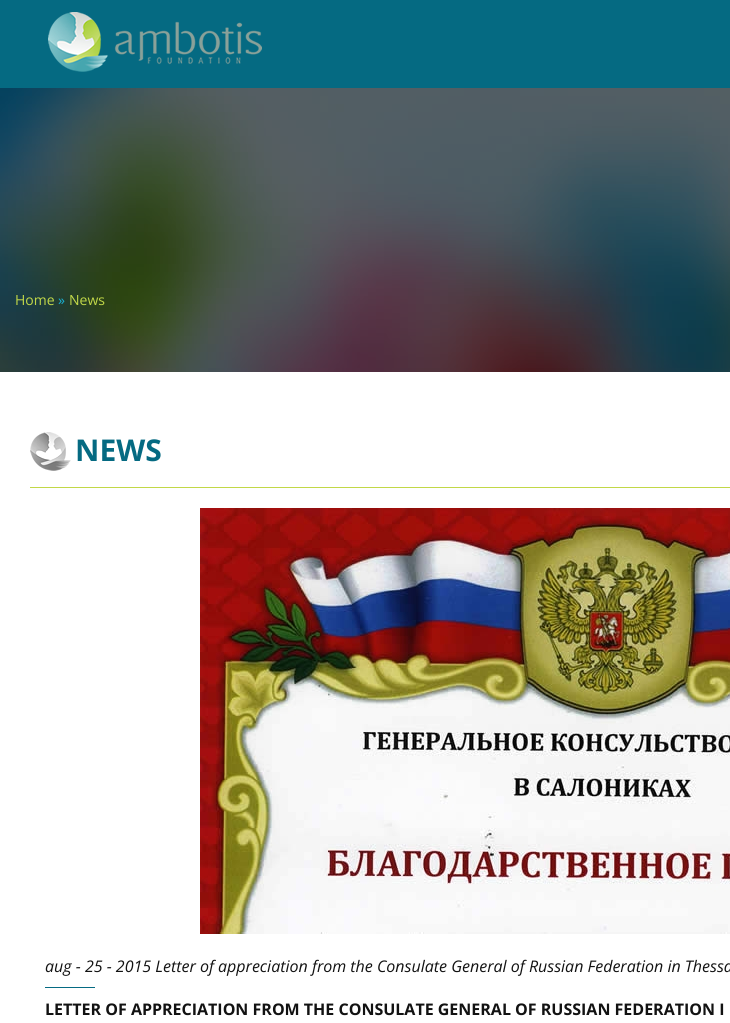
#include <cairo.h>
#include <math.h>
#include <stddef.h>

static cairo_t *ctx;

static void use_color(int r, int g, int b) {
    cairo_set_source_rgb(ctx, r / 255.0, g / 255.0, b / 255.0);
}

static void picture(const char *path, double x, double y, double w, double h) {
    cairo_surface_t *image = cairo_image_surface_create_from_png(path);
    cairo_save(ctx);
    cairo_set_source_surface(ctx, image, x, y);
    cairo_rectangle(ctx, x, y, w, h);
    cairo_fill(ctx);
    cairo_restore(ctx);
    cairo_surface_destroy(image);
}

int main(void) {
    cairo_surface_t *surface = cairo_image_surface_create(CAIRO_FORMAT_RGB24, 730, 1023);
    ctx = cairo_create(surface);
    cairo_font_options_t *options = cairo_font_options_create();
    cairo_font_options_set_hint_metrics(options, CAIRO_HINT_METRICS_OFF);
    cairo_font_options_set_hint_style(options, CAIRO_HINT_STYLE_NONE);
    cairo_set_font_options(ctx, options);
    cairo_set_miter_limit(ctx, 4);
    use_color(255, 255, 255);
    cairo_paint(ctx);
    use_color(5, 106, 130);
    cairo_rectangle(ctx, 0, 0, 730, 88);
    cairo_fill(ctx);
    picture("img1.png", 48, 12, 214, 60);
    picture("img2.png", 0, 88, 730, 284);
    cairo_select_font_face(ctx, "Open Sans", CAIRO_FONT_SLANT_NORMAL, CAIRO_FONT_WEIGHT_NORMAL);
    cairo_set_font_size(ctx, 14);
    use_color(194, 216, 72);
    cairo_move_to(ctx, 15, 305);
    cairo_show_text(ctx, "Home");
    use_color(24, 177, 212);
    cairo_move_to(ctx, 58, 305);
    cairo_show_text(ctx, "»");
    use_color(194, 216, 72);
    cairo_move_to(ctx, 69, 305);
    cairo_show_text(ctx, "News");
    picture("img3.png", 30, 432, 41, 39);
    cairo_rectangle(ctx, 30, 487, 700, 1);
    cairo_fill(ctx);
    cairo_select_font_face(ctx, "Open Sans", CAIRO_FONT_SLANT_NORMAL, CAIRO_FONT_WEIGHT_BOLD);
    cairo_set_font_size(ctx, 30);
    use_color(5, 106, 130);
    cairo_move_to(ctx, 75, 461);
    cairo_show_text(ctx, "NEWS");
    picture("img4.png", 200, 508, 530, 426);
    cairo_select_font_face(ctx, "Open Sans", CAIRO_FONT_SLANT_ITALIC, CAIRO_FONT_WEIGHT_NORMAL);
    cairo_set_font_size(ctx, 16);
    use_color(18, 18, 18);
    cairo_move_to(ctx, 45, 972);
    cairo_show_text(ctx, "aug - 25 - 2015 Letter of appreciation from the Consulate General of Russian Federation in Thessa");
    use_color(5, 106, 130);
    cairo_rectangle(ctx, 45, 987, 50, 1);
    cairo_fill(ctx);
    cairo_select_font_face(ctx, "Open Sans", CAIRO_FONT_SLANT_NORMAL, CAIRO_FONT_WEIGHT_BOLD);
    use_color(18, 18, 18);
    cairo_move_to(ctx, 45, 1015);
    cairo_show_text(ctx, "LETTER OF APPRECIATION FROM THE CONSULATE GENERAL OF RUSSIAN FEDERATION I");
    cairo_surface_write_to_png(surface, "result.png");
    cairo_font_options_destroy(options);
    cairo_destroy(ctx);
    cairo_surface_destroy(surface);
    return 0;
}
